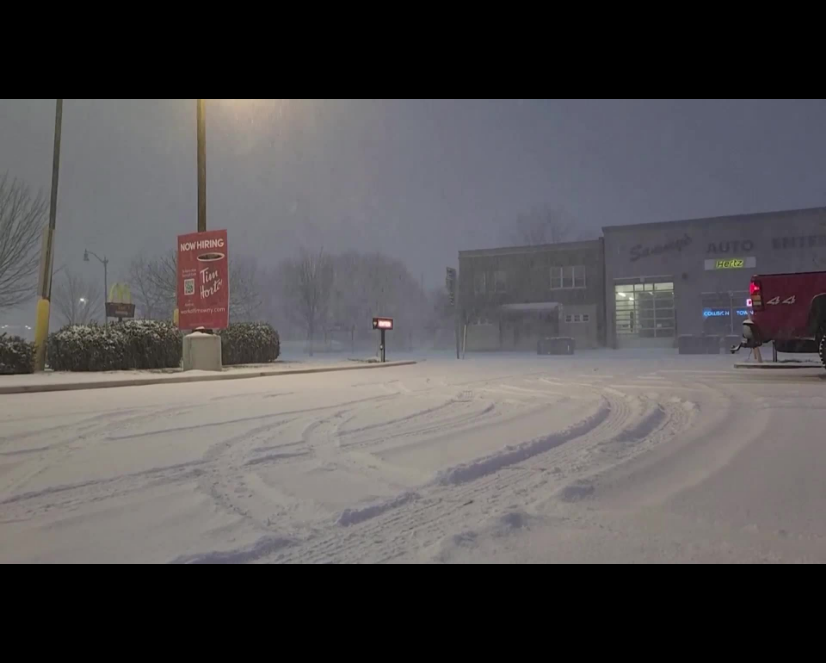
#include <cairo.h>
#include <math.h>
#include <stddef.h>

static cairo_t *ctx;

static void use_color(int r, int g, int b) {
    cairo_set_source_rgb(ctx, r / 255.0, g / 255.0, b / 255.0);
}

static void picture(const char *path, double x, double y, double w, double h) {
    cairo_surface_t *image = cairo_image_surface_create_from_png(path);
    cairo_save(ctx);
    cairo_set_source_surface(ctx, image, x, y);
    cairo_rectangle(ctx, x, y, w, h);
    cairo_fill(ctx);
    cairo_restore(ctx);
    cairo_surface_destroy(image);
}

int main(void) {
    cairo_surface_t *surface = cairo_image_surface_create(CAIRO_FORMAT_RGB24, 826, 663);
    ctx = cairo_create(surface);
    cairo_font_options_t *options = cairo_font_options_create();
    cairo_font_options_set_hint_metrics(options, CAIRO_HINT_METRICS_OFF);
    cairo_font_options_set_hint_style(options, CAIRO_HINT_STYLE_NONE);
    cairo_set_font_options(ctx, options);
    cairo_set_miter_limit(ctx, 4);
    use_color(0, 0, 0);
    cairo_paint(ctx);
    picture("img1.png", 0, 99, 826, 465);
    cairo_surface_write_to_png(surface, "result.png");
    cairo_font_options_destroy(options);
    cairo_destroy(ctx);
    cairo_surface_destroy(surface);
    return 0;
}
